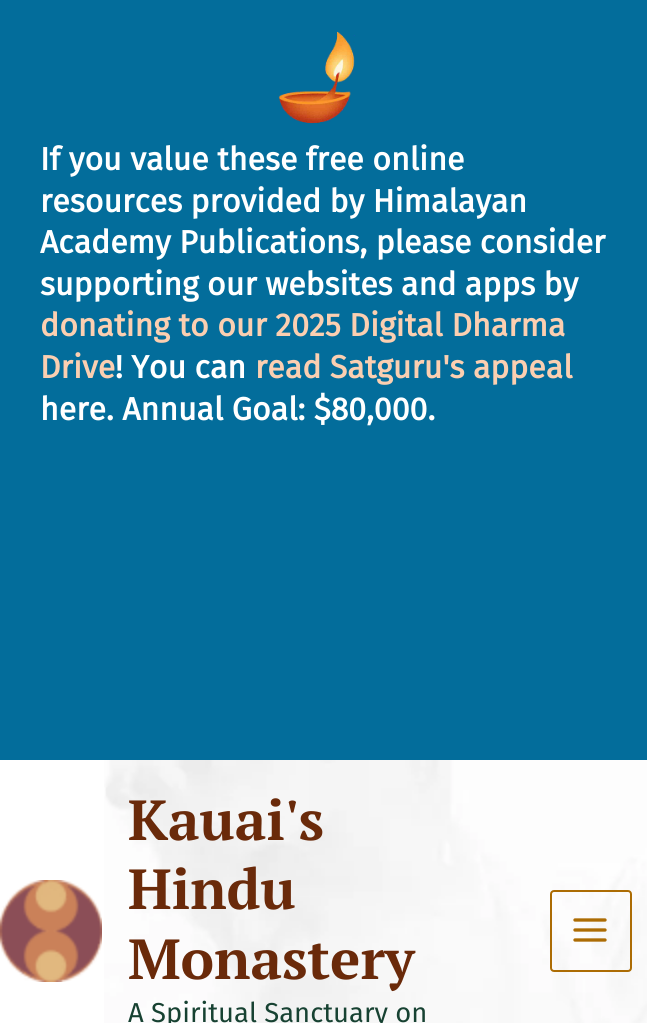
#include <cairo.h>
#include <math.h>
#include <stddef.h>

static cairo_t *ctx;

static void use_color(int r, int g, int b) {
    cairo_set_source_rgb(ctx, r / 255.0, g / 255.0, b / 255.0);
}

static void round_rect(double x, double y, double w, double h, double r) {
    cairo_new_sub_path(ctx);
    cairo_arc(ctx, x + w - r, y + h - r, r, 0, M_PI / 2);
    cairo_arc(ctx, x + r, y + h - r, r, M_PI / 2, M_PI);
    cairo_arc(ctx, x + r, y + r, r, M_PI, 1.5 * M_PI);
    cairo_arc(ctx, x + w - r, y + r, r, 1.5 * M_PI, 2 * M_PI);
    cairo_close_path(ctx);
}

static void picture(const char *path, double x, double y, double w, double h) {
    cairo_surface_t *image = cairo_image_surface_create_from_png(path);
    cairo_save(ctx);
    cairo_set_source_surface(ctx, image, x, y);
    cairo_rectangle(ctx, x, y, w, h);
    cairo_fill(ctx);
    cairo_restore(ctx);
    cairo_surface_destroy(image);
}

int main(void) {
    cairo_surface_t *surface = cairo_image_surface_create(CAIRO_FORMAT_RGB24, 647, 1023);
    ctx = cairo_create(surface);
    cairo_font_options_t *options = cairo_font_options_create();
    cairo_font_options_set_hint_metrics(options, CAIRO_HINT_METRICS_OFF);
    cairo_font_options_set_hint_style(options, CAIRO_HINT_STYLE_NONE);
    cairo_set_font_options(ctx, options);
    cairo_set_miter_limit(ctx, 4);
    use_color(255, 255, 255);
    cairo_paint(ctx);
    use_color(3, 109, 155);
    cairo_rectangle(ctx, 0, 0, 647, 760);
    cairo_fill(ctx);
    picture("img1.png", 278, 31, 77, 93);
    cairo_select_font_face(ctx, "Fira Sans", CAIRO_FONT_SLANT_NORMAL, CAIRO_FONT_WEIGHT_BOLD);
    cairo_set_font_size(ctx, 32);
    use_color(255, 255, 255);
    cairo_move_to(ctx, 40, 170);
    cairo_show_text(ctx, "If you value these free online");
    cairo_move_to(ctx, 40, 212);
    cairo_show_text(ctx, "resources provided by Himalayan");
    cairo_move_to(ctx, 40, 253);
    cairo_show_text(ctx, "Academy Publications, please consider");
    cairo_move_to(ctx, 40, 295);
    cairo_show_text(ctx, "supporting our websites and apps by");
    use_color(251, 207, 177);
    cairo_move_to(ctx, 40, 336);
    cairo_show_text(ctx, "donating to our 2025 Digital Dharma");
    cairo_move_to(ctx, 40, 378);
    cairo_show_text(ctx, "Drive");
    use_color(255, 255, 255);
    cairo_move_to(ctx, 115, 378);
    cairo_show_text(ctx, "! You can");
    use_color(251, 207, 177);
    cairo_move_to(ctx, 255, 378);
    cairo_show_text(ctx, "read Satguru's appeal");
    use_color(255, 255, 255);
    cairo_move_to(ctx, 40, 420);
    cairo_show_text(ctx, "here. Annual Goal: $80,000.");
    picture("img2.png", 104, 760, 543, 263);
    picture("img3.png", 0, 880, 102, 102);
    cairo_select_font_face(ctx, "PT Serif", CAIRO_FONT_SLANT_NORMAL, CAIRO_FONT_WEIGHT_BOLD);
    cairo_set_font_size(ctx, 56.5);
    use_color(106, 42, 10);
    cairo_move_to(ctx, 128, 840);
    cairo_show_text(ctx, "Kauai's");
    cairo_move_to(ctx, 128, 909);
    cairo_show_text(ctx, "Hindu");
    cairo_move_to(ctx, 128, 979);
    cairo_show_text(ctx, "Monastery");
    cairo_select_font_face(ctx, "Fira Sans", CAIRO_FONT_SLANT_NORMAL, CAIRO_FONT_WEIGHT_NORMAL);
    cairo_set_font_size(ctx, 27.4);
    use_color(23, 66, 50);
    cairo_move_to(ctx, 128, 1022);
    cairo_show_text(ctx, "A Spiritual Sanctuary on");
    round_rect(551, 891, 80, 80, 3);
    use_color(172, 108, 4);
    cairo_stroke(ctx);
    picture("img4.png", 573, 918, 34, 24);
    cairo_surface_write_to_png(surface, "result.png");
    cairo_font_options_destroy(options);
    cairo_destroy(ctx);
    cairo_surface_destroy(surface);
    return 0;
}
